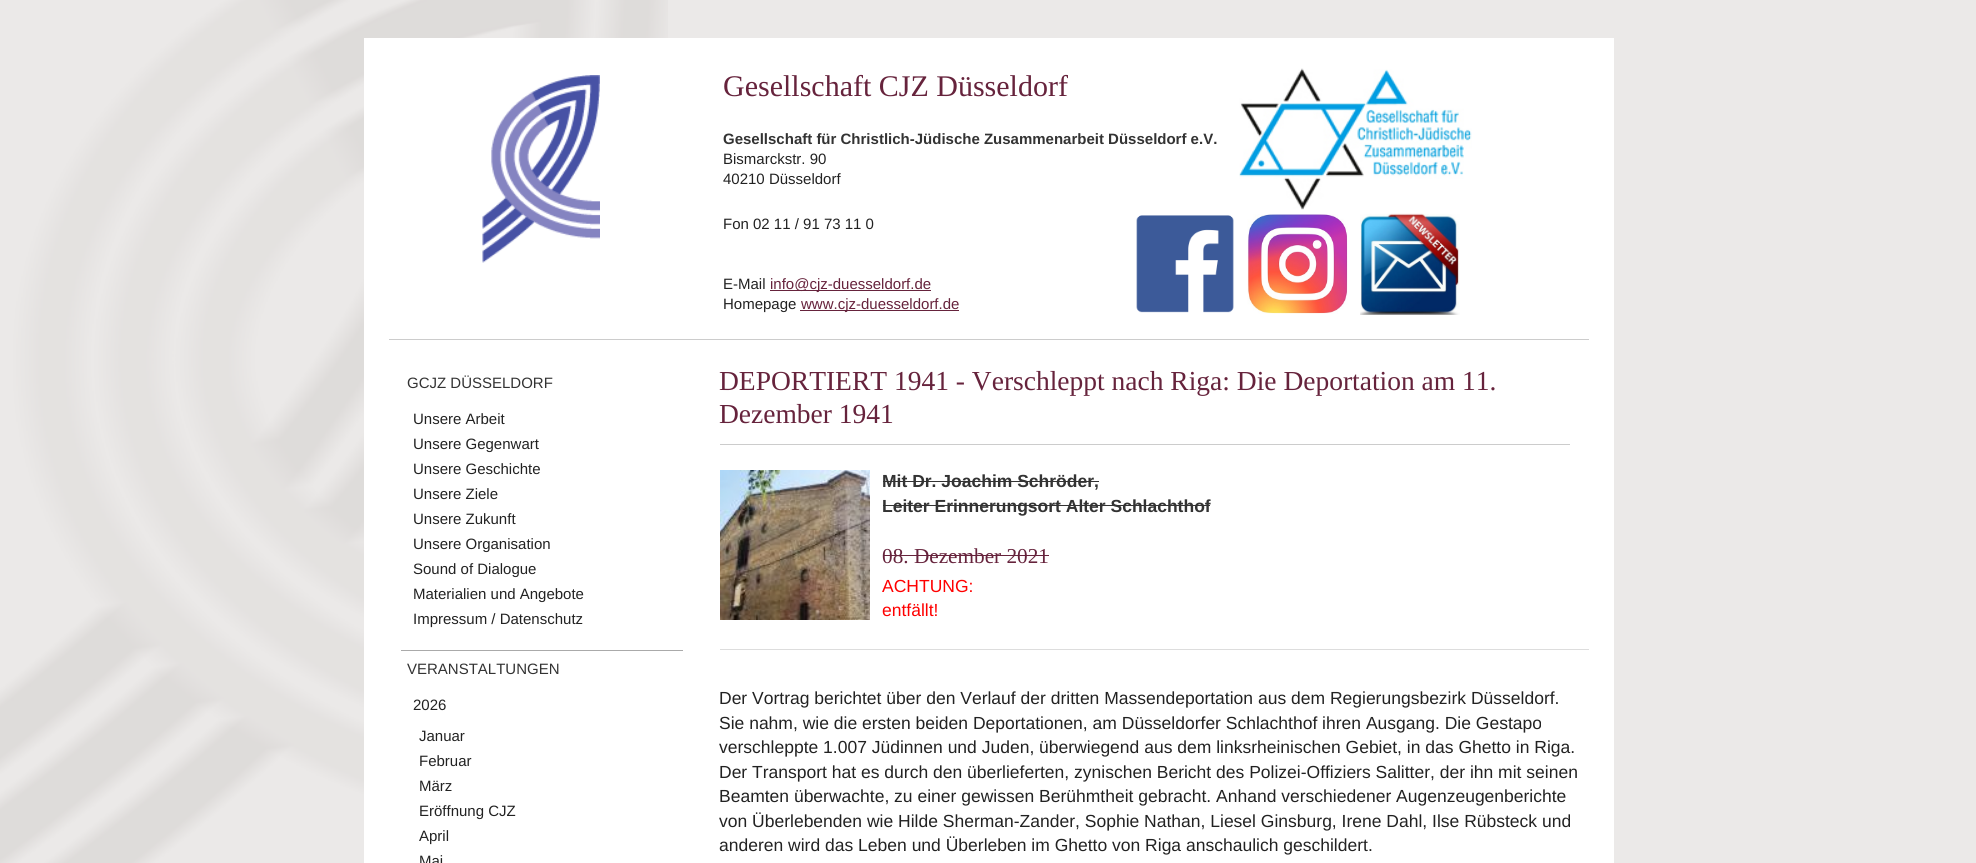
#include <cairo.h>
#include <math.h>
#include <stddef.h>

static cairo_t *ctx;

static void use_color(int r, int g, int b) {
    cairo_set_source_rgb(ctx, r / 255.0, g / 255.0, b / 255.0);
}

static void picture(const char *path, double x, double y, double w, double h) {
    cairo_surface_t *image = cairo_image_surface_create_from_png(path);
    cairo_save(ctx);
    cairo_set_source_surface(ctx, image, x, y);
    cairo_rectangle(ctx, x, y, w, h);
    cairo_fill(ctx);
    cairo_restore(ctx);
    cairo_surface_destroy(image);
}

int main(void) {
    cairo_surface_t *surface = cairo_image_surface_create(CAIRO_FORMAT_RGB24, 1976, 863);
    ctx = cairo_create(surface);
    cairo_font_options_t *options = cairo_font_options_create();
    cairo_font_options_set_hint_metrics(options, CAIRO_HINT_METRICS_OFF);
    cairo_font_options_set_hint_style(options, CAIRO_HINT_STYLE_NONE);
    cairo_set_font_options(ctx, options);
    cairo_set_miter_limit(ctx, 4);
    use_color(235, 233, 232);
    cairo_paint(ctx);
    picture("img1.png", 0, 0, 668, 863);
    use_color(255, 255, 255);
    cairo_rectangle(ctx, 364, 38, 1250, 825);
    cairo_fill(ctx);
    use_color(204, 204, 204);
    cairo_rectangle(ctx, 389, 339, 1200, 1);
    cairo_fill(ctx);
    picture("img2.png", 482, 75, 118, 188);
    cairo_select_font_face(ctx, "Liberation Serif", CAIRO_FONT_SLANT_NORMAL, CAIRO_FONT_WEIGHT_NORMAL);
    cairo_set_font_size(ctx, 30);
    use_color(102, 35, 60);
    cairo_move_to(ctx, 723, 96);
    cairo_show_text(ctx, "Gesellschaft CJZ Düsseldorf");
    picture("img3.png", 1239, 68, 233, 142);
    cairo_select_font_face(ctx, "Liberation Sans", CAIRO_FONT_SLANT_NORMAL, CAIRO_FONT_WEIGHT_BOLD);
    cairo_set_font_size(ctx, 15);
    use_color(51, 51, 51);
    cairo_move_to(ctx, 723, 144);
    cairo_show_text(ctx, "Gesellschaft für Christlich-Jüdische Zusammenarbeit Düsseldorf e.V.");
    cairo_select_font_face(ctx, "Liberation Sans", CAIRO_FONT_SLANT_NORMAL, CAIRO_FONT_WEIGHT_NORMAL);
    use_color(34, 34, 34);
    cairo_move_to(ctx, 723, 164);
    cairo_show_text(ctx, "Bismarckstr. 90");
    cairo_move_to(ctx, 723, 184);
    cairo_show_text(ctx, "40210 Düsseldorf");
    cairo_move_to(ctx, 723, 229);
    cairo_show_text(ctx, "Fon 02 11 / 91 73 11 0");
    picture("img4.png", 1136, 215, 98, 98);
    picture("img5.png", 1247, 214, 101, 100);
    picture("img6.png", 1360, 213, 100, 102);
    cairo_move_to(ctx, 723, 289);
    cairo_show_text(ctx, "E-Mail");
    use_color(102, 35, 60);
    cairo_rectangle(ctx, 770, 290, 161, 1);
    cairo_fill(ctx);
    cairo_move_to(ctx, 770, 289);
    cairo_show_text(ctx, "info@cjz-duesseldorf.de");
    use_color(34, 34, 34);
    cairo_move_to(ctx, 723, 309);
    cairo_show_text(ctx, "Homepage");
    use_color(102, 35, 60);
    cairo_rectangle(ctx, 800, 310, 159, 1);
    cairo_fill(ctx);
    cairo_move_to(ctx, 801, 309);
    cairo_show_text(ctx, "www.cjz-duesseldorf.de");
    use_color(51, 51, 51);
    cairo_move_to(ctx, 407, 388);
    cairo_show_text(ctx, "GCJZ DÜSSELDORF");
    use_color(34, 34, 34);
    cairo_move_to(ctx, 413, 424);
    cairo_show_text(ctx, "Unsere Arbeit");
    cairo_move_to(ctx, 413, 449);
    cairo_show_text(ctx, "Unsere Gegenwart");
    cairo_move_to(ctx, 413, 474);
    cairo_show_text(ctx, "Unsere Geschichte");
    cairo_move_to(ctx, 413, 499);
    cairo_show_text(ctx, "Unsere Ziele");
    cairo_move_to(ctx, 413, 524);
    cairo_show_text(ctx, "Unsere Zukunft");
    cairo_move_to(ctx, 413, 549);
    cairo_show_text(ctx, "Unsere Organisation");
    cairo_move_to(ctx, 413, 574);
    cairo_show_text(ctx, "Sound of Dialogue");
    cairo_move_to(ctx, 413, 599);
    cairo_show_text(ctx, "Materialien und Angebote");
    cairo_move_to(ctx, 413, 624);
    cairo_show_text(ctx, "Impressum / Datenschutz");
    use_color(170, 170, 170);
    cairo_rectangle(ctx, 401, 650, 282, 1);
    cairo_fill(ctx);
    use_color(51, 51, 51);
    cairo_move_to(ctx, 407, 674);
    cairo_show_text(ctx, "VERANSTALTUNGEN");
    use_color(34, 34, 34);
    cairo_move_to(ctx, 413, 710);
    cairo_show_text(ctx, "2026");
    cairo_move_to(ctx, 419, 741);
    cairo_show_text(ctx, "Januar");
    cairo_move_to(ctx, 419, 766);
    cairo_show_text(ctx, "Februar");
    cairo_move_to(ctx, 419, 791);
    cairo_show_text(ctx, "März");
    cairo_move_to(ctx, 419, 816);
    cairo_show_text(ctx, "Eröffnung CJZ");
    cairo_move_to(ctx, 419, 841);
    cairo_show_text(ctx, "April");
    cairo_move_to(ctx, 419, 866);
    cairo_show_text(ctx, "Mai");
    use_color(204, 204, 204);
    cairo_rectangle(ctx, 720, 444, 850, 1);
    cairo_fill(ctx);
    cairo_select_font_face(ctx, "Liberation Serif", CAIRO_FONT_SLANT_NORMAL, CAIRO_FONT_WEIGHT_NORMAL);
    cairo_set_font_size(ctx, 27.5);
    use_color(102, 35, 60);
    cairo_move_to(ctx, 719, 390);
    cairo_show_text(ctx, "DEPORTIERT 1941 - Verschleppt nach Riga: Die Deportation am 11.");
    cairo_move_to(ctx, 719, 423);
    cairo_show_text(ctx, "Dezember 1941");
    picture("img7.png", 720, 470, 150, 150);
    cairo_select_font_face(ctx, "Liberation Sans", CAIRO_FONT_SLANT_NORMAL, CAIRO_FONT_WEIGHT_BOLD);
    cairo_set_font_size(ctx, 17.5);
    use_color(51, 51, 51);
    cairo_move_to(ctx, 882, 487);
    cairo_show_text(ctx, "Mit Dr. Joachim Schröder,");
    cairo_rectangle(ctx, 883, 481, 216, 1);
    cairo_fill(ctx);
    cairo_move_to(ctx, 882, 512);
    cairo_show_text(ctx, "Leiter Erinnerungsort Alter Schlachthof");
    cairo_rectangle(ctx, 883, 505, 327, 1);
    cairo_fill(ctx);
    cairo_select_font_face(ctx, "Liberation Serif", CAIRO_FONT_SLANT_NORMAL, CAIRO_FONT_WEIGHT_NORMAL);
    cairo_set_font_size(ctx, 21.25);
    use_color(102, 35, 60);
    cairo_move_to(ctx, 882, 563);
    cairo_show_text(ctx, "08. Dezember 2021");
    cairo_rectangle(ctx, 883, 555, 166, 1);
    cairo_fill(ctx);
    cairo_select_font_face(ctx, "Liberation Sans", CAIRO_FONT_SLANT_NORMAL, CAIRO_FONT_WEIGHT_NORMAL);
    cairo_set_font_size(ctx, 17.5);
    use_color(255, 0, 0);
    cairo_move_to(ctx, 882, 592);
    cairo_show_text(ctx, "ACHTUNG:");
    cairo_move_to(ctx, 882, 616);
    cairo_show_text(ctx, "entfällt!");
    use_color(221, 221, 221);
    cairo_rectangle(ctx, 720, 649, 869, 1);
    cairo_fill(ctx);
    use_color(34, 34, 34);
    cairo_move_to(ctx, 719, 704);
    cairo_show_text(ctx, "Der Vortrag berichtet über den Verlauf der dritten Massendeportation aus dem Regierungsbezirk Düsseldorf.");
    cairo_move_to(ctx, 719, 729);
    cairo_show_text(ctx, "Sie nahm, wie die ersten beiden Deportationen, am Düsseldorfer Schlachthof ihren Ausgang. Die Gestapo");
    cairo_move_to(ctx, 719, 753);
    cairo_show_text(ctx, "verschleppte 1.007 Jüdinnen und Juden, überwiegend aus dem linksrheinischen Gebiet, in das Ghetto in Riga.");
    cairo_move_to(ctx, 719, 778);
    cairo_show_text(ctx, "Der Transport hat es durch den überlieferten, zynischen Bericht des Polizei-Offiziers Salitter, der ihn mit seinen");
    cairo_move_to(ctx, 719, 802);
    cairo_show_text(ctx, "Beamten überwachte, zu einer gewissen Berühmtheit gebracht. Anhand verschiedener Augenzeugenberichte");
    cairo_move_to(ctx, 719, 827);
    cairo_show_text(ctx, "von Überlebenden wie Hilde Sherman-Zander, Sophie Nathan, Liesel Ginsburg, Irene Dahl, Ilse Rübsteck und");
    cairo_move_to(ctx, 719, 851);
    cairo_show_text(ctx, "anderen wird das Leben und Überleben im Ghetto von Riga anschaulich geschildert.");
    cairo_surface_write_to_png(surface, "result.png");
    cairo_font_options_destroy(options);
    cairo_destroy(ctx);
    cairo_surface_destroy(surface);
    return 0;
}
